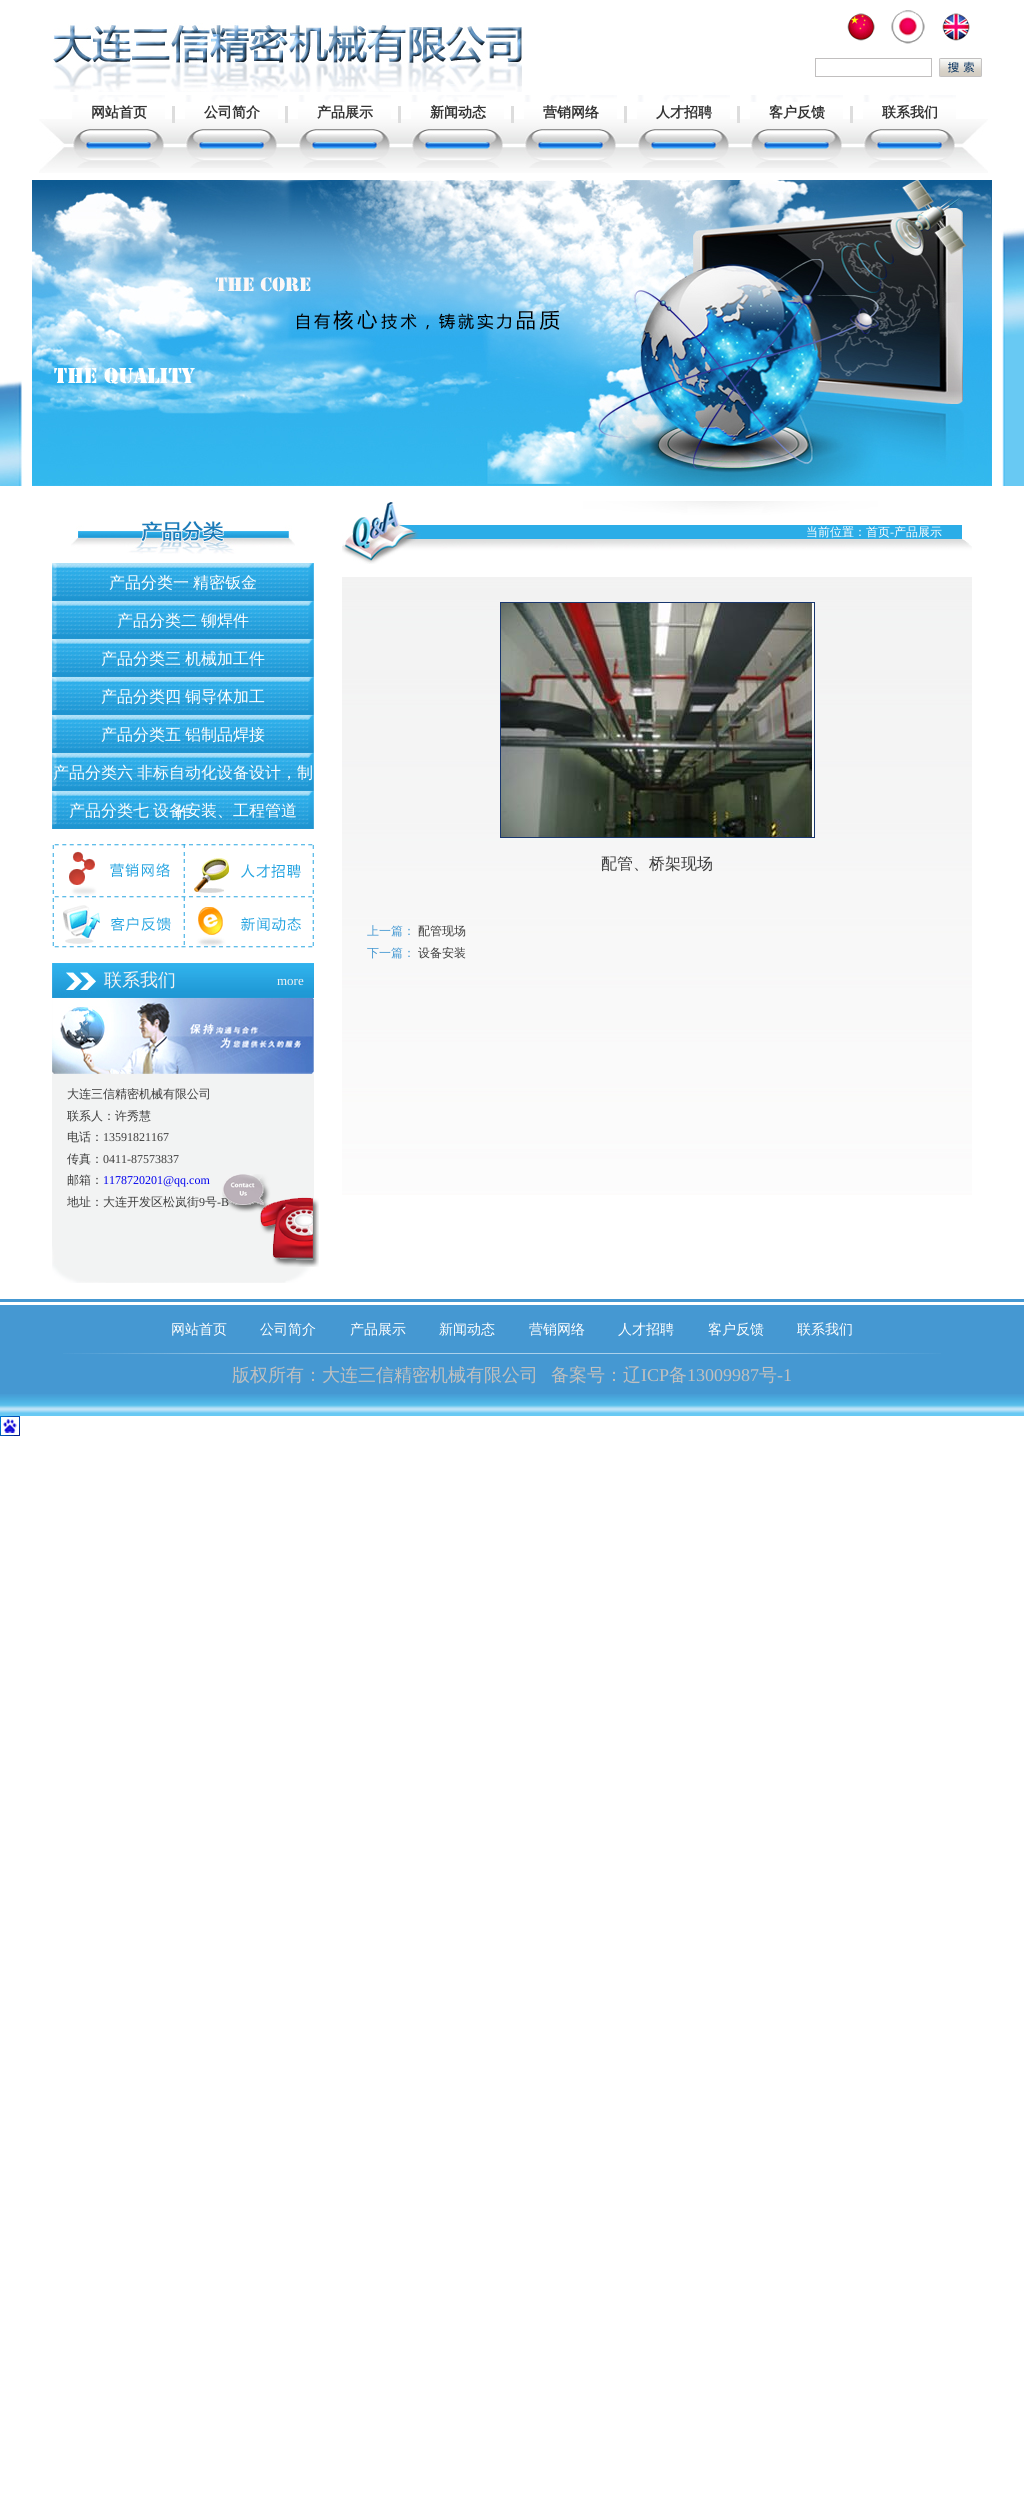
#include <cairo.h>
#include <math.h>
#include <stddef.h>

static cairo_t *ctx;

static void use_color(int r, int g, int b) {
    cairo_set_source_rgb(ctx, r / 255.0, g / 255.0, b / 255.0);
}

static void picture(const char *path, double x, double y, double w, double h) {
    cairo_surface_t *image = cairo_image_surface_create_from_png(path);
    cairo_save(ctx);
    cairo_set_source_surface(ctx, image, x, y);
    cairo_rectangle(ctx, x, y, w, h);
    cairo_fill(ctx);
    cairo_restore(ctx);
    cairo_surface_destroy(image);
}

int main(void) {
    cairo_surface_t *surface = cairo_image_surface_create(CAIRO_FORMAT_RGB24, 1024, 2518);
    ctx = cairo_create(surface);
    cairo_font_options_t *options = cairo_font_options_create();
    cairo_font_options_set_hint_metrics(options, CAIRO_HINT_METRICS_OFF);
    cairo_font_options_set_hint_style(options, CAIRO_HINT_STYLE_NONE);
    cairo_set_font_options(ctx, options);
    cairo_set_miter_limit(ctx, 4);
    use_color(255, 255, 255);
    cairo_paint(ctx);
    picture("img1.png", 53, 23, 469, 69);
    picture("img2.png", 847, 13, 28, 28);
    picture("img3.png", 891, 10, 34, 34);
    picture("img4.png", 942, 13, 28, 28);
    cairo_rectangle(ctx, 815.5, 58.5, 116, 18);
    use_color(193, 191, 191);
    cairo_set_line_width(ctx, 1);
    cairo_stroke(ctx);
    picture("img5.png", 939, 58, 43, 19);
    picture("img6.png", 39, 119, 949, 54);
    use_color(221, 221, 221);
    cairo_rectangle(ctx, 172, 106, 3, 17);
    cairo_fill(ctx);
    picture("img7.png", 72, 95, 93, 73);
    cairo_select_font_face(ctx, "WenQuanYi Zen Hei", CAIRO_FONT_SLANT_NORMAL, CAIRO_FONT_WEIGHT_BOLD);
    cairo_set_font_size(ctx, 14);
    use_color(51, 51, 51);
    cairo_move_to(ctx, 91, 117);
    cairo_show_text(ctx, "网站首页");
    use_color(221, 221, 221);
    cairo_rectangle(ctx, 285, 106, 3, 17);
    cairo_fill(ctx);
    picture("img7.png", 185, 95, 93, 73);
    use_color(51, 51, 51);
    cairo_move_to(ctx, 204, 117);
    cairo_show_text(ctx, "公司简介");
    use_color(221, 221, 221);
    cairo_rectangle(ctx, 398, 106, 3, 17);
    cairo_fill(ctx);
    picture("img7.png", 298, 95, 93, 73);
    use_color(51, 51, 51);
    cairo_move_to(ctx, 317, 117);
    cairo_show_text(ctx, "产品展示");
    use_color(221, 221, 221);
    cairo_rectangle(ctx, 511, 106, 3, 17);
    cairo_fill(ctx);
    picture("img7.png", 411, 95, 93, 73);
    use_color(51, 51, 51);
    cairo_move_to(ctx, 430, 117);
    cairo_show_text(ctx, "新闻动态");
    use_color(221, 221, 221);
    cairo_rectangle(ctx, 624, 106, 3, 17);
    cairo_fill(ctx);
    picture("img7.png", 524, 95, 93, 73);
    use_color(51, 51, 51);
    cairo_move_to(ctx, 543, 117);
    cairo_show_text(ctx, "营销网络");
    use_color(221, 221, 221);
    cairo_rectangle(ctx, 737, 106, 3, 17);
    cairo_fill(ctx);
    picture("img7.png", 637, 95, 93, 73);
    use_color(51, 51, 51);
    cairo_move_to(ctx, 656, 117);
    cairo_show_text(ctx, "人才招聘");
    use_color(221, 221, 221);
    cairo_rectangle(ctx, 850, 106, 3, 17);
    cairo_fill(ctx);
    picture("img7.png", 750, 95, 93, 73);
    use_color(51, 51, 51);
    cairo_move_to(ctx, 769, 117);
    cairo_show_text(ctx, "客户反馈");
    picture("img7.png", 863, 95, 93, 73);
    cairo_move_to(ctx, 882, 117);
    cairo_show_text(ctx, "联系我们");
    picture("img8.png", 0, 228, 1024, 258);
    picture("img9.png", 32, 180, 960, 306);
    picture("img10.png", 71, 521, 224, 33);
    picture("img11.png", 52, 563, 262, 38);
    cairo_select_font_face(ctx, "WenQuanYi Zen Hei Medium", CAIRO_FONT_SLANT_NORMAL, CAIRO_FONT_WEIGHT_NORMAL);
    cairo_set_font_size(ctx, 16);
    use_color(255, 255, 255);
    cairo_move_to(ctx, 109, 588);
    cairo_show_text(ctx, "产品分类一");
    cairo_move_to(ctx, 193, 588);
    cairo_show_text(ctx, "精密钣金");
    picture("img11.png", 52, 601, 262, 38);
    cairo_move_to(ctx, 117, 626);
    cairo_show_text(ctx, "产品分类二");
    cairo_move_to(ctx, 201, 626);
    cairo_show_text(ctx, "铆焊件");
    picture("img11.png", 52, 639, 262, 38);
    cairo_move_to(ctx, 101, 664);
    cairo_show_text(ctx, "产品分类三");
    cairo_move_to(ctx, 185, 664);
    cairo_show_text(ctx, "机械加工件");
    picture("img11.png", 52, 677, 262, 38);
    cairo_move_to(ctx, 101, 702);
    cairo_show_text(ctx, "产品分类四");
    cairo_move_to(ctx, 185, 702);
    cairo_show_text(ctx, "铜导体加工");
    picture("img11.png", 52, 715, 262, 38);
    cairo_move_to(ctx, 101, 740);
    cairo_show_text(ctx, "产品分类五");
    cairo_move_to(ctx, 185, 740);
    cairo_show_text(ctx, "铝制品焊接");
    picture("img11.png", 52, 753, 262, 38);
    cairo_move_to(ctx, 53, 778);
    cairo_show_text(ctx, "产品分类六");
    cairo_move_to(ctx, 137, 778);
    cairo_show_text(ctx, "非标自动化设备设计，制");
    picture("img11.png", 52, 791, 262, 38);
    cairo_move_to(ctx, 175, 818);
    cairo_show_text(ctx, "作");
    cairo_move_to(ctx, 69, 816);
    cairo_show_text(ctx, "产品分类七");
    cairo_move_to(ctx, 153, 816);
    cairo_show_text(ctx, "设备安装、工程管道");
    picture("img12.png", 52, 844, 131, 54);
    picture("img13.png", 183, 844, 131, 54);
    picture("img14.png", 52, 898, 131, 50);
    picture("img15.png", 183, 898, 131, 50);
    use_color(242, 243, 243);
    cairo_rectangle(ctx, 52, 1074, 262, 172);
    cairo_fill(ctx);
    picture("img16.png", 52, 1246, 262, 37);
    picture("img17.png", 96, 963, 218, 35);
    picture("img18.png", 52, 963, 44, 35);
    cairo_set_font_size(ctx, 18);
    cairo_move_to(ctx, 104, 986);
    cairo_show_text(ctx, "联系我们");
    cairo_select_font_face(ctx, "Liberation Serif", CAIRO_FONT_SLANT_NORMAL, CAIRO_FONT_WEIGHT_NORMAL);
    cairo_set_font_size(ctx, 13);
    cairo_move_to(ctx, 277, 985);
    cairo_show_text(ctx, "more");
    picture("img19.png", 52, 998, 262, 76);
    cairo_select_font_face(ctx, "WenQuanYi Zen Hei Medium", CAIRO_FONT_SLANT_NORMAL, CAIRO_FONT_WEIGHT_NORMAL);
    cairo_set_font_size(ctx, 12);
    use_color(60, 60, 60);
    cairo_move_to(ctx, 67, 1098);
    cairo_show_text(ctx, "大连三信精密机械有限公司");
    cairo_move_to(ctx, 67, 1120);
    cairo_show_text(ctx, "联系人：许秀慧");
    cairo_move_to(ctx, 67, 1141);
    cairo_show_text(ctx, "电话：");
    cairo_select_font_face(ctx, "Liberation Serif", CAIRO_FONT_SLANT_NORMAL, CAIRO_FONT_WEIGHT_NORMAL);
    cairo_move_to(ctx, 103, 1141);
    cairo_show_text(ctx, "13591821167");
    cairo_select_font_face(ctx, "WenQuanYi Zen Hei Medium", CAIRO_FONT_SLANT_NORMAL, CAIRO_FONT_WEIGHT_NORMAL);
    cairo_move_to(ctx, 67, 1163);
    cairo_show_text(ctx, "传真：");
    cairo_select_font_face(ctx, "Liberation Serif", CAIRO_FONT_SLANT_NORMAL, CAIRO_FONT_WEIGHT_NORMAL);
    cairo_move_to(ctx, 103, 1163);
    cairo_show_text(ctx, "0411-87573837");
    cairo_select_font_face(ctx, "WenQuanYi Zen Hei Medium", CAIRO_FONT_SLANT_NORMAL, CAIRO_FONT_WEIGHT_NORMAL);
    cairo_move_to(ctx, 67, 1184);
    cairo_show_text(ctx, "邮箱：");
    cairo_select_font_face(ctx, "Liberation Serif", CAIRO_FONT_SLANT_NORMAL, CAIRO_FONT_WEIGHT_NORMAL);
    use_color(0, 0, 238);
    cairo_move_to(ctx, 103, 1184);
    cairo_show_text(ctx, "1178720201@qq.com");
    cairo_select_font_face(ctx, "WenQuanYi Zen Hei Medium", CAIRO_FONT_SLANT_NORMAL, CAIRO_FONT_WEIGHT_NORMAL);
    use_color(60, 60, 60);
    cairo_move_to(ctx, 67, 1206);
    cairo_show_text(ctx, "地址：大连开发区松岚街");
    cairo_select_font_face(ctx, "Liberation Serif", CAIRO_FONT_SLANT_NORMAL, CAIRO_FONT_WEIGHT_NORMAL);
    cairo_move_to(ctx, 199, 1206);
    cairo_show_text(ctx, "9");
    cairo_select_font_face(ctx, "WenQuanYi Zen Hei Medium", CAIRO_FONT_SLANT_NORMAL, CAIRO_FONT_WEIGHT_NORMAL);
    cairo_move_to(ctx, 205, 1206);
    cairo_show_text(ctx, "号");
    cairo_select_font_face(ctx, "Liberation Serif", CAIRO_FONT_SLANT_NORMAL, CAIRO_FONT_WEIGHT_NORMAL);
    cairo_move_to(ctx, 217, 1206);
    cairo_show_text(ctx, "-B");
    picture("img20.png", 222, 1174, 97, 93);
    picture("img21.png", 342, 501, 630, 63);
    cairo_select_font_face(ctx, "WenQuanYi Zen Hei Medium", CAIRO_FONT_SLANT_NORMAL, CAIRO_FONT_WEIGHT_NORMAL);
    use_color(255, 255, 255);
    cairo_move_to(ctx, 806, 536);
    cairo_show_text(ctx, "当前位置：首页");
    cairo_select_font_face(ctx, "Liberation Serif", CAIRO_FONT_SLANT_NORMAL, CAIRO_FONT_WEIGHT_NORMAL);
    cairo_move_to(ctx, 890, 536);
    cairo_show_text(ctx, "-");
    cairo_select_font_face(ctx, "WenQuanYi Zen Hei Medium", CAIRO_FONT_SLANT_NORMAL, CAIRO_FONT_WEIGHT_NORMAL);
    cairo_move_to(ctx, 894, 536);
    cairo_show_text(ctx, "产品展示");
    picture("img22.png", 342, 577, 630, 618);
    cairo_rectangle(ctx, 500.5, 602.5, 314, 235);
    use_color(25, 55, 111);
    cairo_stroke(ctx);
    picture("img23.png", 501, 603, 313, 234);
    cairo_set_font_size(ctx, 16);
    use_color(60, 60, 60);
    cairo_move_to(ctx, 601, 869);
    cairo_show_text(ctx, "配管、桥架现场");
    cairo_set_font_size(ctx, 12);
    use_color(69, 152, 210);
    cairo_move_to(ctx, 367, 935);
    cairo_show_text(ctx, "上一篇：");
    use_color(60, 60, 60);
    cairo_move_to(ctx, 418, 935);
    cairo_show_text(ctx, "配管现场");
    use_color(69, 152, 210);
    cairo_move_to(ctx, 367, 957);
    cairo_show_text(ctx, "下一篇：");
    use_color(60, 60, 60);
    cairo_move_to(ctx, 418, 957);
    cairo_show_text(ctx, "设备安装");
    use_color(69, 152, 210);
    cairo_rectangle(ctx, 0, 1299, 1024, 95);
    cairo_fill(ctx);
    use_color(255, 255, 255);
    cairo_rectangle(ctx, 0, 1302, 1024, 3);
    cairo_fill(ctx);
    picture("img24.png", 0, 1394, 1024, 22);
    cairo_set_font_size(ctx, 14);
    cairo_move_to(ctx, 171, 1334);
    cairo_show_text(ctx, "网站首页");
    cairo_move_to(ctx, 260, 1334);
    cairo_show_text(ctx, "公司简介");
    cairo_move_to(ctx, 350, 1334);
    cairo_show_text(ctx, "产品展示");
    cairo_move_to(ctx, 439, 1334);
    cairo_show_text(ctx, "新闻动态");
    cairo_move_to(ctx, 529, 1334);
    cairo_show_text(ctx, "营销网络");
    cairo_move_to(ctx, 618, 1334);
    cairo_show_text(ctx, "人才招聘");
    cairo_move_to(ctx, 708, 1334);
    cairo_show_text(ctx, "客户反馈");
    cairo_move_to(ctx, 797, 1334);
    cairo_show_text(ctx, "联系我们");
    picture("img25.png", 63, 1353, 878, 1);
    cairo_set_font_size(ctx, 18);
    use_color(192, 192, 192);
    cairo_move_to(ctx, 232, 1381);
    cairo_show_text(ctx, "版权所有：大连三信精密机械有限公司");
    cairo_move_to(ctx, 551, 1381);
    cairo_show_text(ctx, "备案号：辽");
    cairo_select_font_face(ctx, "Liberation Serif", CAIRO_FONT_SLANT_NORMAL, CAIRO_FONT_WEIGHT_NORMAL);
    cairo_move_to(ctx, 641, 1381);
    cairo_show_text(ctx, "ICP");
    cairo_select_font_face(ctx, "WenQuanYi Zen Hei Medium", CAIRO_FONT_SLANT_NORMAL, CAIRO_FONT_WEIGHT_NORMAL);
    cairo_move_to(ctx, 669, 1381);
    cairo_show_text(ctx, "备");
    cairo_select_font_face(ctx, "Liberation Serif", CAIRO_FONT_SLANT_NORMAL, CAIRO_FONT_WEIGHT_NORMAL);
    cairo_move_to(ctx, 687, 1381);
    cairo_show_text(ctx, "13009987");
    cairo_select_font_face(ctx, "WenQuanYi Zen Hei Medium", CAIRO_FONT_SLANT_NORMAL, CAIRO_FONT_WEIGHT_NORMAL);
    cairo_move_to(ctx, 759, 1381);
    cairo_show_text(ctx, "号");
    cairo_select_font_face(ctx, "Liberation Serif", CAIRO_FONT_SLANT_NORMAL, CAIRO_FONT_WEIGHT_NORMAL);
    cairo_move_to(ctx, 777, 1381);
    cairo_show_text(ctx, "-1");
    picture("img26.png", 0, 1416, 20, 20);
    cairo_surface_write_to_png(surface, "result.png");
    cairo_font_options_destroy(options);
    cairo_destroy(ctx);
    cairo_surface_destroy(surface);
    return 0;
}
